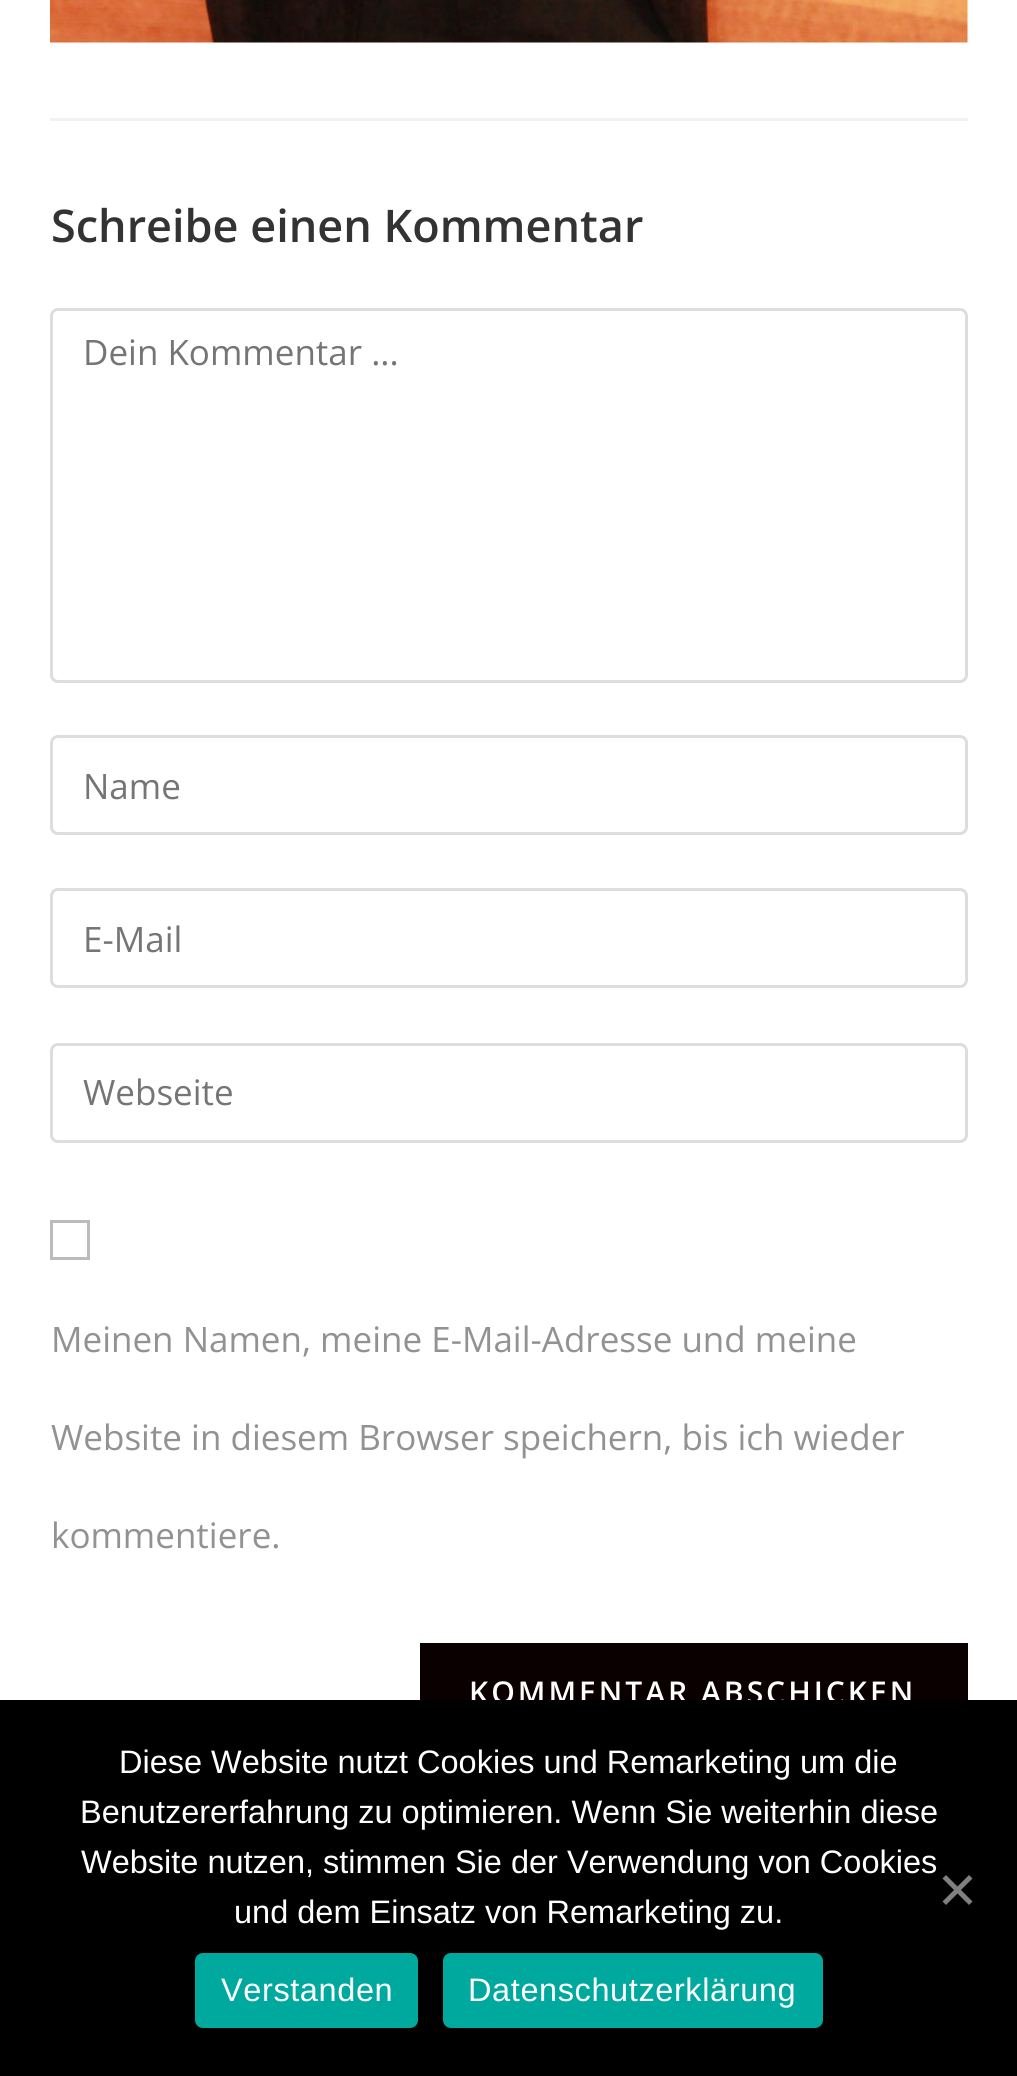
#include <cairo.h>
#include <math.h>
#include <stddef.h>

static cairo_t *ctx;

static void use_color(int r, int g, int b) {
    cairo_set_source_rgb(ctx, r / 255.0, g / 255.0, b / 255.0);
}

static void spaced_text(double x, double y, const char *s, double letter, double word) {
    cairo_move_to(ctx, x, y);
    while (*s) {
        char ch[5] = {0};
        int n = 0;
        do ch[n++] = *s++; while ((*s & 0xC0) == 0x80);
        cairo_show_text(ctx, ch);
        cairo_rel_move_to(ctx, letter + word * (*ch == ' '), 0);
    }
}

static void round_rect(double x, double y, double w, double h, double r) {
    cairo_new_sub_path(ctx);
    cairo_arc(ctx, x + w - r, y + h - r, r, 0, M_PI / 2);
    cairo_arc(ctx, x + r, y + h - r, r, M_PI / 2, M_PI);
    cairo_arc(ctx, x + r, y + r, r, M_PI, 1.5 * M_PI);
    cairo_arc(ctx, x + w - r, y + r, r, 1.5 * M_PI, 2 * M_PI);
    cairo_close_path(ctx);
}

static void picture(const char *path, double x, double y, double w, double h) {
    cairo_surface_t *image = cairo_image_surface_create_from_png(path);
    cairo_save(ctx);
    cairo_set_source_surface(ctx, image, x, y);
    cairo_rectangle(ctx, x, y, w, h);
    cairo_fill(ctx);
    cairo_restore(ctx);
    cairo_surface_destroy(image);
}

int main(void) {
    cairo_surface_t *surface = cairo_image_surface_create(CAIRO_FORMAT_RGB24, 1017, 2076);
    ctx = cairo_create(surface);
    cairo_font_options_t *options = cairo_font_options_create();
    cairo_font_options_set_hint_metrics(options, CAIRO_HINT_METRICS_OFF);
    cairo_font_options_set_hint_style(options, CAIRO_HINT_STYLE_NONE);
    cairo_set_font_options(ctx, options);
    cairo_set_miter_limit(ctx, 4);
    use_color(255, 255, 255);
    cairo_paint(ctx);
    picture("img1.png", 50, 0, 918, 43);
    use_color(241, 241, 241);
    cairo_rectangle(ctx, 50, 118, 918, 3);
    cairo_fill(ctx);
    cairo_select_font_face(ctx, "Open Sans SemiBold", CAIRO_FONT_SLANT_NORMAL, CAIRO_FONT_WEIGHT_NORMAL);
    cairo_set_font_size(ctx, 45);
    use_color(51, 51, 51);
    cairo_move_to(ctx, 51, 242);
    cairo_show_text(ctx, "Schreibe einen Kommentar");
    round_rect(51.5, 309.5, 915, 372, 6.5);
    use_color(221, 221, 221);
    cairo_set_line_width(ctx, 3);
    cairo_stroke(ctx);
    cairo_select_font_face(ctx, "Open Sans", CAIRO_FONT_SLANT_NORMAL, CAIRO_FONT_WEIGHT_NORMAL);
    cairo_set_font_size(ctx, 35);
    use_color(117, 117, 117);
    cairo_move_to(ctx, 83, 365);
    cairo_show_text(ctx, "Dein Kommentar ...");
    round_rect(51.5, 736.5, 915, 97, 6.5);
    use_color(221, 221, 221);
    cairo_stroke(ctx);
    use_color(117, 117, 117);
    cairo_move_to(ctx, 83, 799);
    cairo_show_text(ctx, "Name");
    round_rect(51.5, 889.5, 915, 97, 6.5);
    use_color(221, 221, 221);
    cairo_stroke(ctx);
    use_color(117, 117, 117);
    cairo_move_to(ctx, 83, 952);
    cairo_show_text(ctx, "E-Mail");
    round_rect(51.5, 1044.5, 915, 97, 6.5);
    use_color(221, 221, 221);
    cairo_stroke(ctx);
    use_color(117, 117, 117);
    cairo_move_to(ctx, 83, 1105);
    cairo_show_text(ctx, "Webseite");
    cairo_rectangle(ctx, 51.5, 1221.5, 37, 37);
    use_color(187, 187, 187);
    cairo_stroke(ctx);
    use_color(146, 146, 146);
    cairo_move_to(ctx, 51, 1352);
    cairo_show_text(ctx, "Meinen Namen, meine E-Mail-Adresse und meine");
    cairo_move_to(ctx, 51, 1450);
    cairo_show_text(ctx, "Website in diesem Browser speichern, bis ich wieder");
    cairo_move_to(ctx, 51, 1548);
    cairo_show_text(ctx, "kommentiere.");
    use_color(10, 0, 0);
    cairo_rectangle(ctx, 420, 1643, 548, 57);
    cairo_fill(ctx);
    cairo_select_font_face(ctx, "Open Sans SemiBold", CAIRO_FONT_SLANT_NORMAL, CAIRO_FONT_WEIGHT_NORMAL);
    cairo_set_font_size(ctx, 30);
    use_color(255, 255, 255);
    spaced_text(469, 1703, "KOMMENTAR ABSCHICKEN", 3, 0);
    use_color(0, 0, 0);
    cairo_rectangle(ctx, 0, 1700, 1017, 376);
    cairo_fill(ctx);
    cairo_select_font_face(ctx, "Liberation Sans", CAIRO_FONT_SLANT_NORMAL, CAIRO_FONT_WEIGHT_NORMAL);
    cairo_set_font_size(ctx, 32.5);
    use_color(255, 255, 255);
    cairo_move_to(ctx, 119, 1773);
    cairo_show_text(ctx, "Diese Website nutzt Cookies und Remarketing um die");
    cairo_move_to(ctx, 80, 1823);
    cairo_show_text(ctx, "Benutzererfahrung zu optimieren. Wenn Sie weiterhin diese");
    cairo_move_to(ctx, 81, 1873);
    cairo_show_text(ctx, "Website nutzen, stimmen Sie der Verwendung von Cookies");
    cairo_move_to(ctx, 234, 1923);
    cairo_show_text(ctx, "und dem Einsatz von Remarketing zu.");
    use_color(128, 128, 128);
    cairo_new_path(ctx);
    cairo_move_to(ctx, 969, 1875);
    cairo_line_to(ctx, 972.5, 1878.5);
    cairo_line_to(ctx, 946, 1905);
    cairo_line_to(ctx, 942.5, 1901.5);
    cairo_close_path(ctx);
    cairo_fill(ctx);
    cairo_new_path(ctx);
    cairo_move_to(ctx, 942.5, 1878.5);
    cairo_line_to(ctx, 946, 1875);
    cairo_line_to(ctx, 972.5, 1901.5);
    cairo_line_to(ctx, 969, 1905);
    cairo_close_path(ctx);
    cairo_fill(ctx);
    use_color(0, 169, 157);
    round_rect(195, 1953, 223, 75, 8);
    cairo_fill(ctx);
    use_color(255, 255, 255);
    spaced_text(221, 2001, "Verstanden", 0.6, 0);
    use_color(0, 169, 157);
    round_rect(443, 1953, 380, 75, 8);
    cairo_fill(ctx);
    use_color(255, 255, 255);
    spaced_text(468, 2001, "Datenschutzerklärung", 0.6, 0);
    cairo_surface_write_to_png(surface, "result.png");
    cairo_font_options_destroy(options);
    cairo_destroy(ctx);
    cairo_surface_destroy(surface);
    return 0;
}
